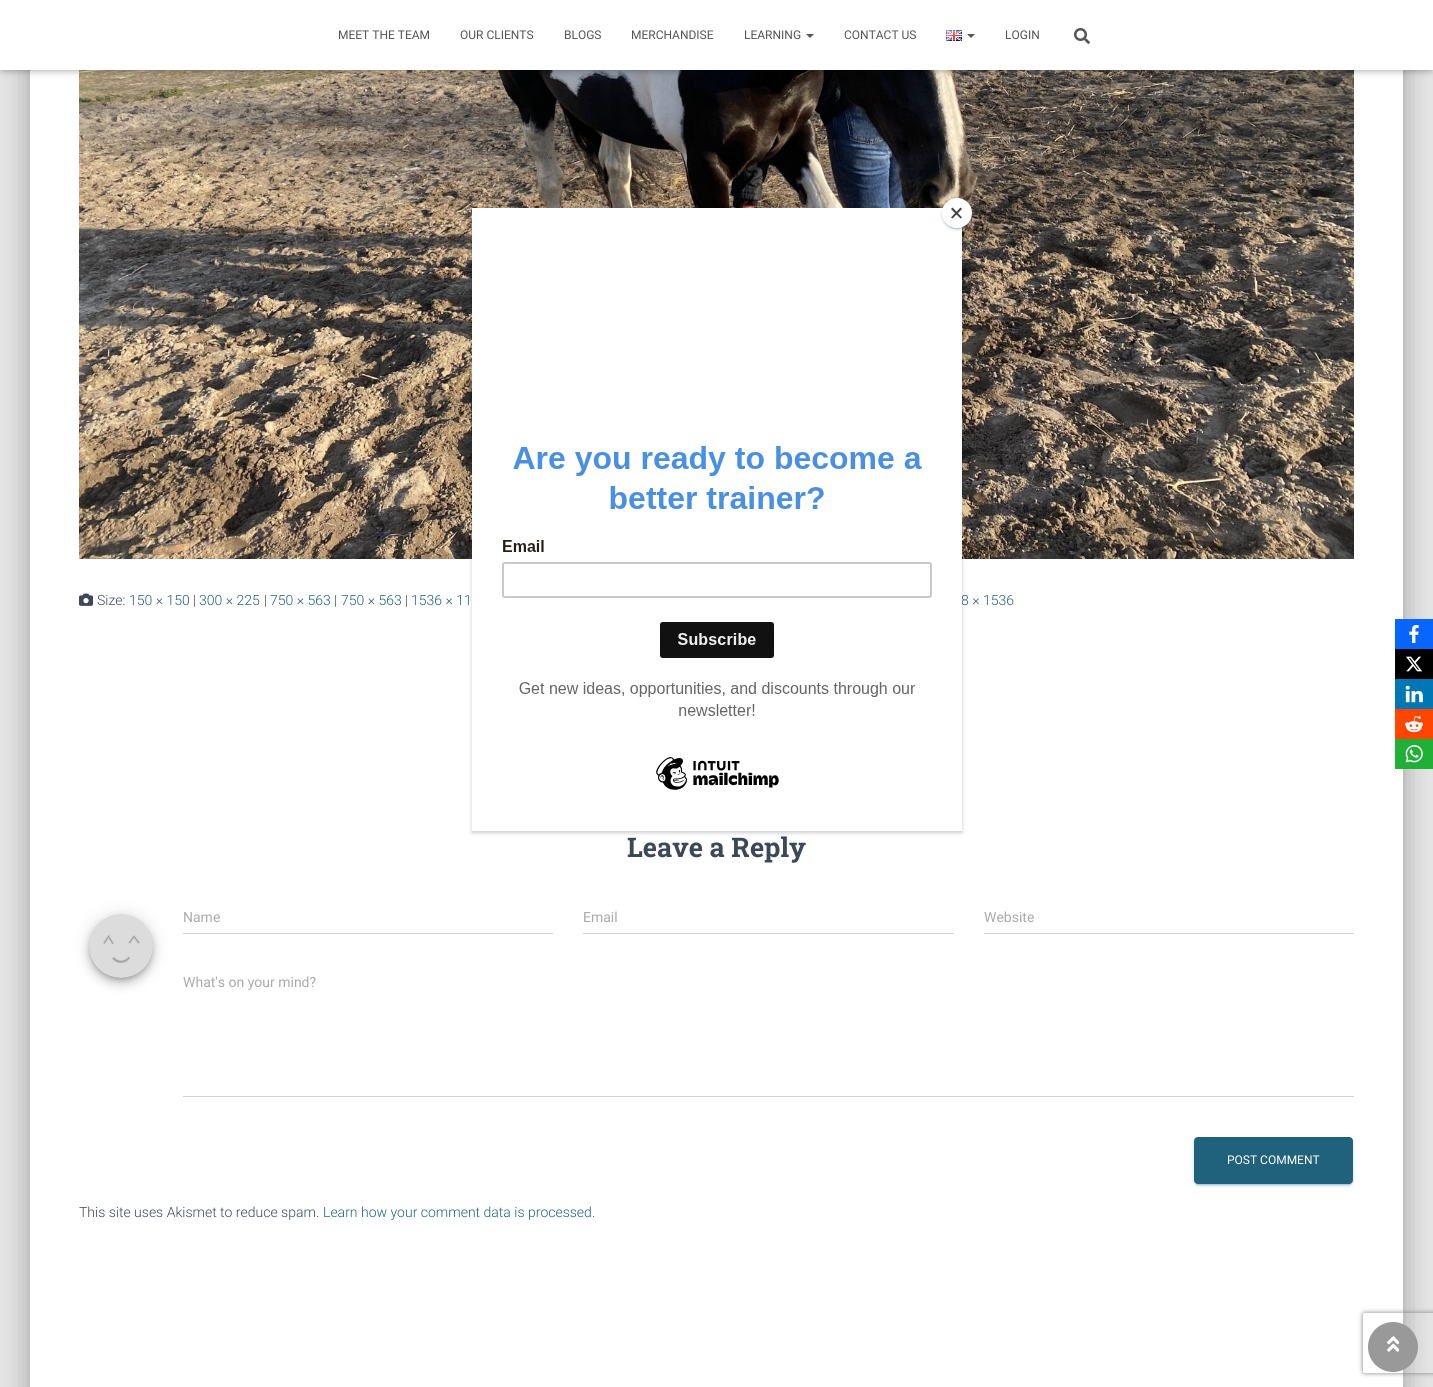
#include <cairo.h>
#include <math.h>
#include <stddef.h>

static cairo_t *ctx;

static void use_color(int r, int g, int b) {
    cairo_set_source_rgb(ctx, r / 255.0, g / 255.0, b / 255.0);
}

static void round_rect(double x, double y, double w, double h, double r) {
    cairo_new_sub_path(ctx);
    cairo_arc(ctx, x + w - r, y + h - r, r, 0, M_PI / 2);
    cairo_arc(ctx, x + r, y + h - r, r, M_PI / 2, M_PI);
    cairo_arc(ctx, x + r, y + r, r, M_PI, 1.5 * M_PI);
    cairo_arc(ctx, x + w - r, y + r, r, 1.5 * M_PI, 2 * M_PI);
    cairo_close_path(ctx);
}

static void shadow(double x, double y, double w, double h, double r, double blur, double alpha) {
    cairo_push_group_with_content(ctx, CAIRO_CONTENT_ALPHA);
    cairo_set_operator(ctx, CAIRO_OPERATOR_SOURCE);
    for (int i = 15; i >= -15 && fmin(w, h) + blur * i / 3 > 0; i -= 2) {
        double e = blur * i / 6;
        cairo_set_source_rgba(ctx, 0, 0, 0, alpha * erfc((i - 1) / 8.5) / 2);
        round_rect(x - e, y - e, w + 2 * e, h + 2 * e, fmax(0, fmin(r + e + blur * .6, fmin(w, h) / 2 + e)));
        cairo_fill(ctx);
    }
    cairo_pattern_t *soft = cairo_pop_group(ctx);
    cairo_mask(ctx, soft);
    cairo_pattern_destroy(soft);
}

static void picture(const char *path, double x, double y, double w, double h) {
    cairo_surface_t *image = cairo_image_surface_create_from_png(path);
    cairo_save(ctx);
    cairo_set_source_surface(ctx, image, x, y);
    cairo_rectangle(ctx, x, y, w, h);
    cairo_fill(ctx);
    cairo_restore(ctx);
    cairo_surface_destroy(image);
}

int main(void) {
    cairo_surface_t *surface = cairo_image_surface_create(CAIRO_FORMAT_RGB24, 1433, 1387);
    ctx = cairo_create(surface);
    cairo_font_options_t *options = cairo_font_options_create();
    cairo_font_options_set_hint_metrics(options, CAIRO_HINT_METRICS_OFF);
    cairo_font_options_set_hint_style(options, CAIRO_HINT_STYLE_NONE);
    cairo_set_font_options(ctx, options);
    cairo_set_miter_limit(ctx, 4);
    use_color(229, 229, 229);
    cairo_paint(ctx);
    use_color(0, 0, 0);
    shadow(35, -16, 1363, 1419, 1, 5, 0.2);
    shadow(25, -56, 1383, 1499, 11, 15, 0.12);
    shadow(28, -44, 1377, 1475, 8, 12, 0.14);
    use_color(255, 255, 255);
    cairo_rectangle(ctx, 30, 70, 1373, 1317);
    cairo_fill(ctx);
    picture("img3.png", 79, 70, 1275, 489);
    use_color(0, 0, 0);
    shadow(2, 6, 1429, 66, 0, 2.5, 0.1);
    shadow(0, 1, 1433, 70, 0, 5, 0.12);
    shadow(6, 7, 1421, 58, 0, 5, 0.42);
    use_color(255, 255, 255);
    cairo_rectangle(ctx, 0, 0, 1433, 70);
    cairo_fill(ctx);
    cairo_select_font_face(ctx, "Roboto", CAIRO_FONT_SLANT_NORMAL, CAIRO_FONT_WEIGHT_NORMAL);
    cairo_set_font_size(ctx, 12);
    use_color(85, 85, 85);
    cairo_move_to(ctx, 338, 39);
    cairo_show_text(ctx, "MEET THE TEAM");
    cairo_move_to(ctx, 460, 39);
    cairo_show_text(ctx, "OUR CLIENTS");
    cairo_move_to(ctx, 564, 39);
    cairo_show_text(ctx, "BLOGS");
    cairo_move_to(ctx, 631, 39);
    cairo_show_text(ctx, "MERCHANDISE");
    cairo_move_to(ctx, 744, 39);
    cairo_show_text(ctx, "LEARNING");
    cairo_new_path(ctx);
    cairo_move_to(ctx, 806, 34);
    cairo_line_to(ctx, 814, 34);
    cairo_line_to(ctx, 810, 38);
    cairo_close_path(ctx);
    cairo_fill(ctx);
    cairo_move_to(ctx, 844, 39);
    cairo_show_text(ctx, "CONTACT US");
    picture("img1.png", 946, 30, 16, 11);
    cairo_new_path(ctx);
    cairo_move_to(ctx, 967, 34);
    cairo_line_to(ctx, 975, 34);
    cairo_line_to(ctx, 971, 38);
    cairo_close_path(ctx);
    cairo_fill(ctx);
    cairo_move_to(ctx, 1005, 39);
    cairo_show_text(ctx, "LOGIN");
    picture("img2.png", 1074, 28, 16, 16);
    cairo_set_font_size(ctx, 14);
    use_color(95, 86, 74);
    cairo_move_to(ctx, 1065, 138);
    cairo_show_text(ctx, "h");
    picture("img4.png", 79, 593, 14, 13);
    cairo_select_font_face(ctx, "Roboto Light", CAIRO_FONT_SLANT_NORMAL, CAIRO_FONT_WEIGHT_NORMAL);
    use_color(60, 72, 88);
    cairo_move_to(ctx, 97, 605);
    cairo_show_text(ctx, "Size:");
    use_color(32, 97, 123);
    cairo_move_to(ctx, 129, 605);
    cairo_show_text(ctx, "150 × 150");
    use_color(60, 72, 88);
    cairo_move_to(ctx, 193, 605);
    cairo_show_text(ctx, "|");
    use_color(32, 97, 123);
    cairo_move_to(ctx, 199, 605);
    cairo_show_text(ctx, "300 × 225");
    use_color(60, 72, 88);
    cairo_move_to(ctx, 264, 605);
    cairo_show_text(ctx, "|");
    use_color(32, 97, 123);
    cairo_move_to(ctx, 270, 605);
    cairo_show_text(ctx, "750 × 563");
    use_color(60, 72, 88);
    cairo_move_to(ctx, 334, 605);
    cairo_show_text(ctx, "|");
    use_color(32, 97, 123);
    cairo_move_to(ctx, 341, 605);
    cairo_show_text(ctx, "750 × 563");
    use_color(60, 72, 88);
    cairo_move_to(ctx, 405, 605);
    cairo_show_text(ctx, "|");
    use_color(32, 97, 123);
    cairo_move_to(ctx, 411, 605);
    cairo_show_text(ctx, "1536 × 11");
    cairo_move_to(ctx, 961, 605);
    cairo_show_text(ctx, "8 × 1536");
    cairo_select_font_face(ctx, "Roboto Slab", CAIRO_FONT_SLANT_NORMAL, CAIRO_FONT_WEIGHT_BOLD);
    cairo_set_font_size(ctx, 27);
    use_color(60, 72, 88);
    cairo_move_to(ctx, 627, 857);
    cairo_show_text(ctx, "Leave a Reply");
    use_color(0, 0, 0);
    shadow(90, 918, 62, 62, 31, 2.5, 0.2);
    shadow(89, 915, 64, 64, 32, 9, 0.12);
    shadow(89, 920, 64, 64, 32, 5, 0.14);
    picture("img5.png", 89, 914, 64, 64);
    cairo_select_font_face(ctx, "Roboto", CAIRO_FONT_SLANT_NORMAL, CAIRO_FONT_WEIGHT_NORMAL);
    cairo_set_font_size(ctx, 14);
    use_color(170, 170, 170);
    cairo_move_to(ctx, 183, 922);
    cairo_show_text(ctx, "Name");
    use_color(210, 210, 210);
    cairo_rectangle(ctx, 183, 933, 370, 1);
    cairo_fill(ctx);
    use_color(170, 170, 170);
    cairo_move_to(ctx, 583, 922);
    cairo_show_text(ctx, "Email");
    use_color(210, 210, 210);
    cairo_rectangle(ctx, 583, 933, 371, 1);
    cairo_fill(ctx);
    use_color(170, 170, 170);
    cairo_move_to(ctx, 984, 922);
    cairo_show_text(ctx, "Website");
    use_color(210, 210, 210);
    cairo_rectangle(ctx, 984, 933, 370, 1);
    cairo_fill(ctx);
    use_color(170, 170, 170);
    cairo_move_to(ctx, 183, 987);
    cairo_show_text(ctx, "What's on your mind?");
    use_color(210, 210, 210);
    cairo_rectangle(ctx, 183, 1096, 1171, 1);
    cairo_fill(ctx);
    use_color(32, 97, 123);
    shadow(1194, 1138, 159, 47, 4, 2.5, 0.12);
    shadow(1196, 1142, 155, 43, 2, 0.5, 0.2);
    shadow(1194, 1139, 159, 47, 4, 1, 0.14);
    use_color(32, 97, 123);
    round_rect(1194, 1137, 159, 47, 4);
    cairo_fill(ctx);
    cairo_set_font_size(ctx, 12);
    use_color(255, 255, 255);
    cairo_move_to(ctx, 1227, 1164);
    cairo_show_text(ctx, "POST COMMENT");
    cairo_select_font_face(ctx, "Roboto Light", CAIRO_FONT_SLANT_NORMAL, CAIRO_FONT_WEIGHT_NORMAL);
    cairo_set_font_size(ctx, 14);
    use_color(60, 72, 88);
    cairo_move_to(ctx, 79, 1217);
    cairo_show_text(ctx, "This site uses Akismet to reduce spam.");
    use_color(32, 97, 123);
    cairo_move_to(ctx, 323, 1217);
    cairo_show_text(ctx, "Learn how your comment data is processed.");
    cairo_save(ctx);
    cairo_set_fill_rule(ctx, CAIRO_FILL_RULE_EVEN_ODD);
    cairo_new_path(ctx);
    cairo_move_to(ctx, 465, 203);
    cairo_line_to(ctx, 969, 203);
    cairo_line_to(ctx, 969, 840);
    cairo_line_to(ctx, 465, 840);
    cairo_close_path(ctx);
    cairo_move_to(ctx, 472, 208);
    cairo_line_to(ctx, 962, 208);
    cairo_line_to(ctx, 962, 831);
    cairo_line_to(ctx, 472, 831);
    cairo_close_path(ctx);
    cairo_clip(ctx);
    use_color(0, 0, 0);
    shadow(472, 210, 490, 623, 0, 2, 0.2);
    cairo_restore(ctx);
    picture("img6.png", 472, 208, 490, 582);
    use_color(32, 97, 123);
    shadow(942, 199, 30, 30, 15, 2.5, 0.12);
    shadow(944, 203, 26, 26, 13, 0.5, 0.2);
    shadow(942, 200, 30, 30, 15, 1, 0.14);
    use_color(255, 255, 255);
    cairo_arc(ctx, 957, 213, 15, 0, 2 * M_PI);
    cairo_fill(ctx);
    use_color(65, 65, 65);
    cairo_new_path(ctx);
    cairo_move_to(ctx, 960.5, 207.5);
    cairo_line_to(ctx, 962, 209);
    cairo_line_to(ctx, 952.5, 218.5);
    cairo_line_to(ctx, 951, 217.5);
    cairo_close_path(ctx);
    cairo_fill(ctx);
    cairo_new_path(ctx);
    cairo_move_to(ctx, 951, 209);
    cairo_line_to(ctx, 952.5, 207.5);
    cairo_line_to(ctx, 962, 217.5);
    cairo_line_to(ctx, 960.5, 218.5);
    cairo_close_path(ctx);
    cairo_fill(ctx);
    use_color(8, 102, 255);
    cairo_rectangle(ctx, 1395, 619, 38, 30);
    cairo_fill(ctx);
    picture("img7.png", 1409, 625, 10, 18);
    use_color(0, 0, 0);
    cairo_rectangle(ctx, 1395, 649, 38, 30);
    cairo_fill(ctx);
    picture("img8.png", 1406, 656, 16, 16);
    use_color(0, 119, 181);
    cairo_rectangle(ctx, 1395, 679, 38, 30);
    cairo_fill(ctx);
    picture("img9.png", 1405, 685, 18, 18);
    use_color(255, 69, 0);
    cairo_rectangle(ctx, 1395, 709, 38, 30);
    cairo_fill(ctx);
    picture("img10.png", 1405, 716, 18, 17);
    use_color(32, 176, 56);
    cairo_rectangle(ctx, 1395, 739, 38, 30);
    cairo_fill(ctx);
    picture("img11.png", 1405, 745, 18, 18);
    cairo_save(ctx);
    cairo_set_fill_rule(ctx, CAIRO_FILL_RULE_EVEN_ODD);
    cairo_new_path(ctx);
    cairo_move_to(ctx, 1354, 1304);
    cairo_line_to(ctx, 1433, 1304);
    cairo_line_to(ctx, 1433, 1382);
    cairo_line_to(ctx, 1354, 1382);
    cairo_close_path(ctx);
    cairo_move_to(ctx, 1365, 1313);
    cairo_line_to(ctx, 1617, 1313);
    cairo_curve_to(ctx, 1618, 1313, 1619, 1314, 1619, 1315);
    cairo_line_to(ctx, 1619, 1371);
    cairo_curve_to(ctx, 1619, 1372, 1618, 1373, 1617, 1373);
    cairo_line_to(ctx, 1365, 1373);
    cairo_curve_to(ctx, 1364, 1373, 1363, 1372, 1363, 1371);
    cairo_line_to(ctx, 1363, 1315);
    cairo_curve_to(ctx, 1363, 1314, 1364, 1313, 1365, 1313);
    cairo_close_path(ctx);
    cairo_clip(ctx);
    use_color(128, 128, 128);
    shadow(1363, 1313, 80, 60, 2, 2.5, 1);
    cairo_restore(ctx);
    use_color(153, 153, 153);
    cairo_arc(ctx, 1393, 1347, 25, 0, 2 * M_PI);
    cairo_fill(ctx);
    picture("img12.png", 1387, 1336, 12, 16);
    cairo_surface_write_to_png(surface, "result.png");
    cairo_font_options_destroy(options);
    cairo_destroy(ctx);
    cairo_surface_destroy(surface);
    return 0;
}
